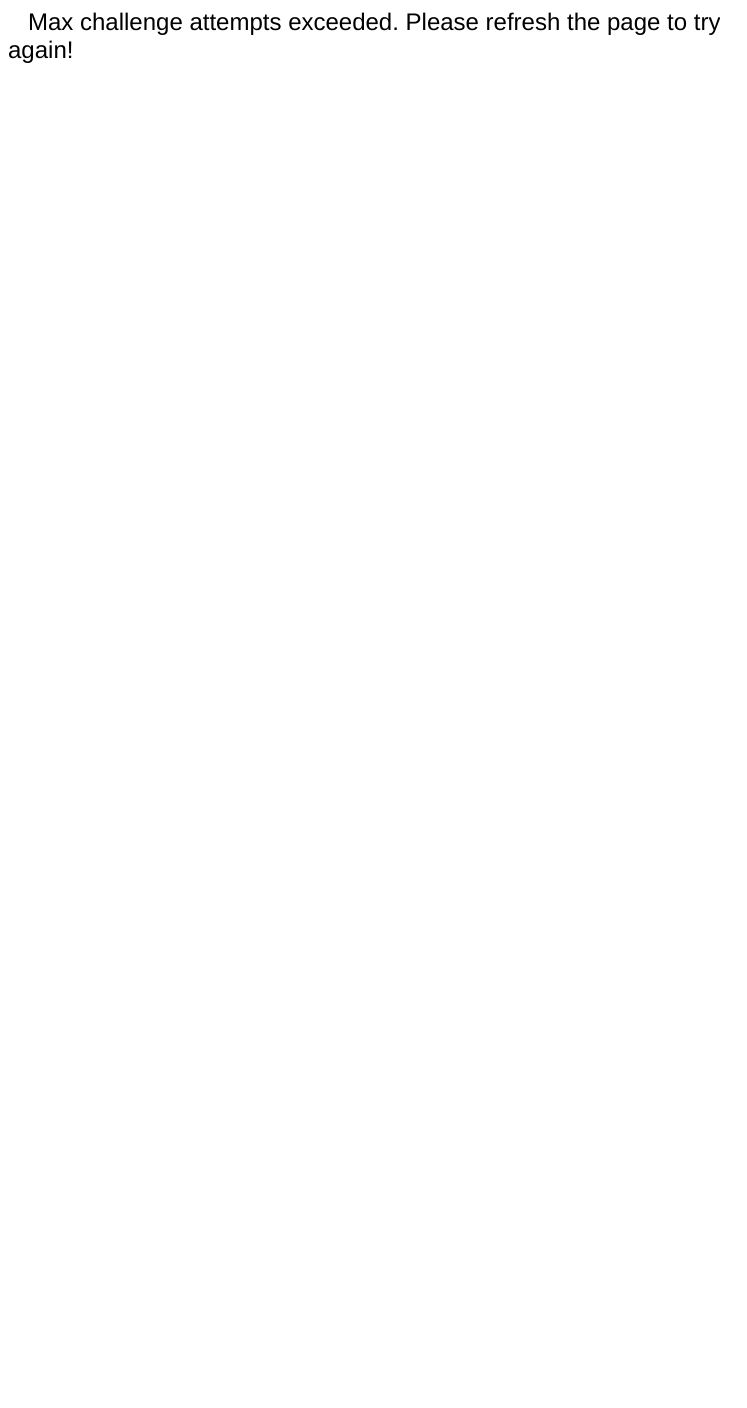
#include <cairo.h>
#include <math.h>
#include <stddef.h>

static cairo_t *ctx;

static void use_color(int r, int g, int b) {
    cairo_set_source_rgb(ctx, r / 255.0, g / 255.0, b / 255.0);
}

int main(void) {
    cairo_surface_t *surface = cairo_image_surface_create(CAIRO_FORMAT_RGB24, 747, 1408);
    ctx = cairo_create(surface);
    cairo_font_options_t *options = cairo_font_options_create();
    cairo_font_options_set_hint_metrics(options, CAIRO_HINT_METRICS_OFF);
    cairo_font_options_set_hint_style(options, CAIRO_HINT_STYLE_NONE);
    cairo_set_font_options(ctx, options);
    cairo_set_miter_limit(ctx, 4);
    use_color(255, 255, 255);
    cairo_paint(ctx);
    cairo_select_font_face(ctx, "Liberation Sans", CAIRO_FONT_SLANT_NORMAL, CAIRO_FONT_WEIGHT_NORMAL);
    cairo_set_font_size(ctx, 24);
    use_color(0, 0, 0);
    cairo_move_to(ctx, 28, 30);
    cairo_show_text(ctx, "Max challenge attempts exceeded. Please refresh the page to try");
    cairo_move_to(ctx, 8, 58);
    cairo_show_text(ctx, "again!");
    cairo_surface_write_to_png(surface, "result.png");
    cairo_font_options_destroy(options);
    cairo_destroy(ctx);
    cairo_surface_destroy(surface);
    return 0;
}
